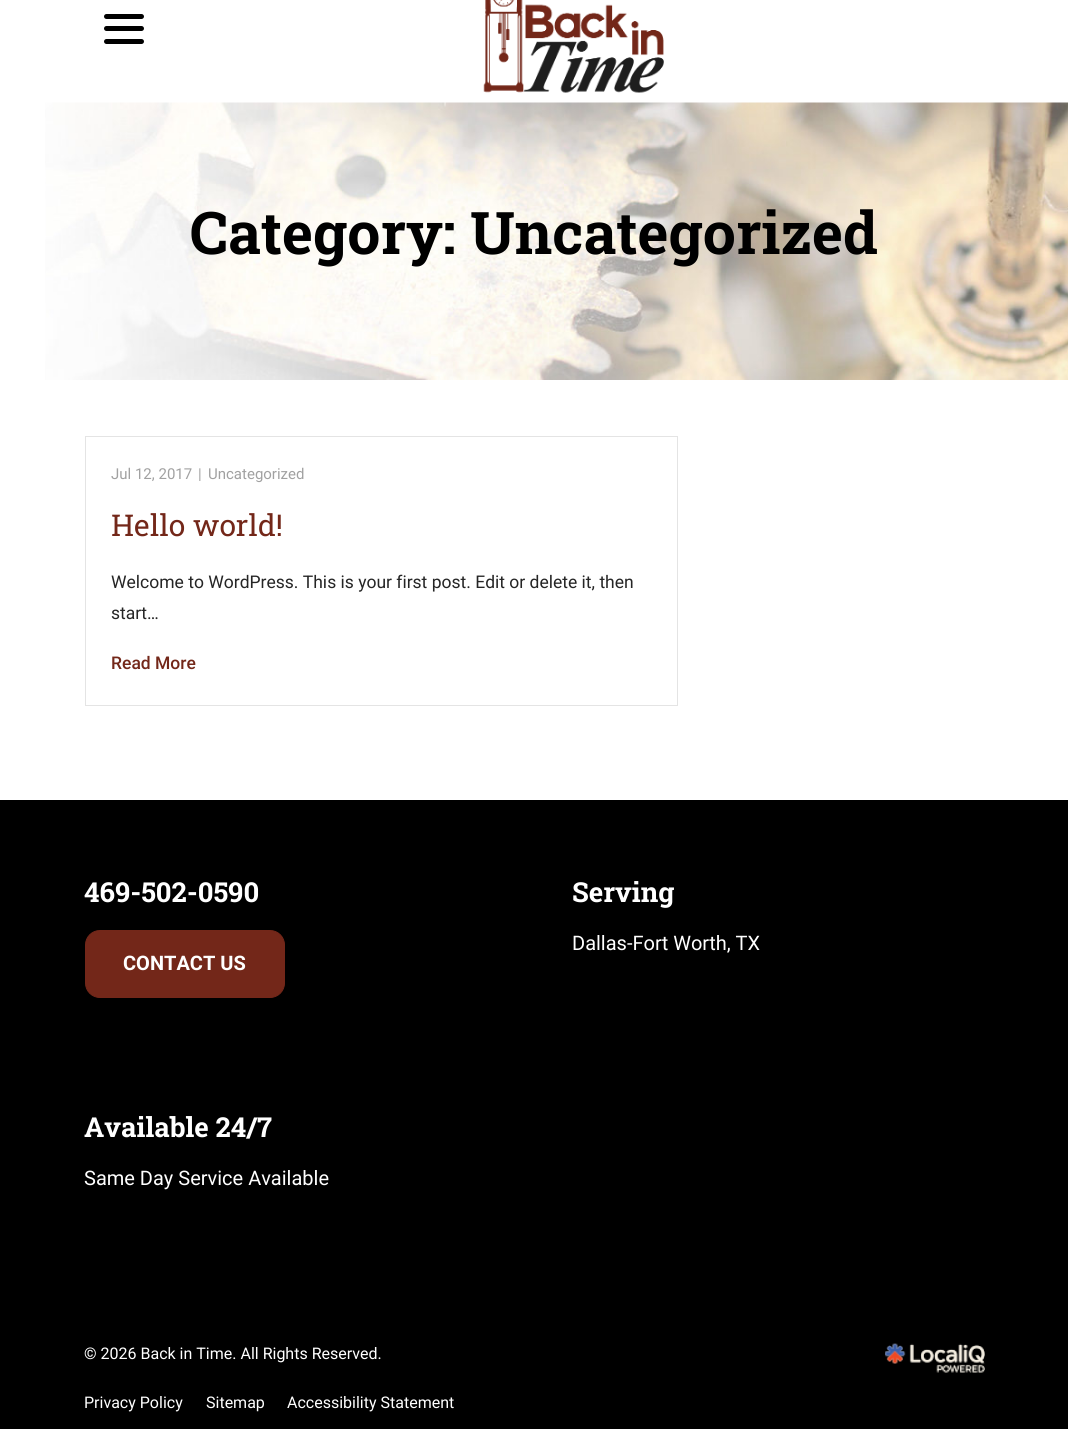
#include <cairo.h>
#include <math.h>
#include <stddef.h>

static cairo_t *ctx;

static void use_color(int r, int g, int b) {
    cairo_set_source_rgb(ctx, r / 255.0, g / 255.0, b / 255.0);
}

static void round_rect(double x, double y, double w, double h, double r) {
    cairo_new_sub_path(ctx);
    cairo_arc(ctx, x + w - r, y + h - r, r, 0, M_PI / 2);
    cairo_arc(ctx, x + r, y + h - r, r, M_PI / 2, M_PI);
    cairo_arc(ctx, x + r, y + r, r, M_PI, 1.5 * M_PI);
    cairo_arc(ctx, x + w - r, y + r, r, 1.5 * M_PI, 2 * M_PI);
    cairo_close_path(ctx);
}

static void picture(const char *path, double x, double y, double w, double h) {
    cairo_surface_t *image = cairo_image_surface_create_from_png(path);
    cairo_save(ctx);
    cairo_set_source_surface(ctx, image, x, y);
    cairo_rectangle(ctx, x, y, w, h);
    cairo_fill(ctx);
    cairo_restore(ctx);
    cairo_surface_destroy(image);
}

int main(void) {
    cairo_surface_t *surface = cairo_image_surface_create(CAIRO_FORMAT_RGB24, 1068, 1429);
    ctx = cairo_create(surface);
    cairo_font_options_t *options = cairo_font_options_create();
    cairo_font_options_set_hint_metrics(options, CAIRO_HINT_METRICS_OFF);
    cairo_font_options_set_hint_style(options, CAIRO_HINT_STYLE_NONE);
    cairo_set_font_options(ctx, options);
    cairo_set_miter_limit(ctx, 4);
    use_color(255, 255, 255);
    cairo_paint(ctx);
    use_color(0, 0, 0);
    round_rect(104, 26, 40, 5, 2.5);
    cairo_fill(ctx);
    round_rect(104, 14, 40, 5, 2.5);
    cairo_fill(ctx);
    round_rect(104, 39, 40, 5, 2.5);
    cairo_fill(ctx);
    picture("img1.png", 483, 0, 181, 93);
    picture("img2.png", 45, 102, 1023, 278);
    cairo_select_font_face(ctx, "Roboto Slab", CAIRO_FONT_SLANT_NORMAL, CAIRO_FONT_WEIGHT_BOLD);
    cairo_set_font_size(ctx, 58.75);
    cairo_move_to(ctx, 190, 254);
    cairo_show_text(ctx, "Category: Uncategorized");
    cairo_rectangle(ctx, 85.5, 436.5, 592, 269);
    use_color(228, 228, 228);
    cairo_set_line_width(ctx, 1);
    cairo_stroke(ctx);
    cairo_select_font_face(ctx, "Roboto", CAIRO_FONT_SLANT_NORMAL, CAIRO_FONT_WEIGHT_NORMAL);
    cairo_set_font_size(ctx, 15);
    use_color(161, 161, 161);
    cairo_move_to(ctx, 111, 479);
    cairo_show_text(ctx, "Jul 12, 2017");
    cairo_move_to(ctx, 198, 479);
    cairo_show_text(ctx, "|");
    cairo_move_to(ctx, 208, 479);
    cairo_show_text(ctx, "Uncategorized");
    cairo_select_font_face(ctx, "Roboto Slab", CAIRO_FONT_SLANT_NORMAL, CAIRO_FONT_WEIGHT_NORMAL);
    cairo_set_font_size(ctx, 30);
    use_color(115, 39, 25);
    cairo_move_to(ctx, 111, 536);
    cairo_show_text(ctx, "Hello world!");
    cairo_select_font_face(ctx, "Roboto", CAIRO_FONT_SLANT_NORMAL, CAIRO_FONT_WEIGHT_NORMAL);
    cairo_set_font_size(ctx, 17.5);
    use_color(37, 37, 37);
    cairo_move_to(ctx, 111, 588);
    cairo_show_text(ctx, "Welcome to WordPress. This is your first post. Edit or delete it, then");
    cairo_move_to(ctx, 111, 619);
    cairo_show_text(ctx, "start…");
    cairo_select_font_face(ctx, "Roboto Medium", CAIRO_FONT_SLANT_NORMAL, CAIRO_FONT_WEIGHT_NORMAL);
    use_color(115, 39, 25);
    cairo_move_to(ctx, 111, 669);
    cairo_show_text(ctx, "Read More");
    use_color(0, 0, 0);
    cairo_rectangle(ctx, 0, 800, 1068, 629);
    cairo_fill(ctx);
    cairo_select_font_face(ctx, "Roboto Slab", CAIRO_FONT_SLANT_NORMAL, CAIRO_FONT_WEIGHT_BOLD);
    cairo_set_font_size(ctx, 27.5);
    use_color(255, 255, 255);
    cairo_move_to(ctx, 84, 902);
    cairo_show_text(ctx, "469-502-0590");
    use_color(115, 39, 25);
    round_rect(85.5, 930.5, 199, 67, 14.5);
    cairo_fill_preserve(ctx);
    cairo_stroke(ctx);
    cairo_select_font_face(ctx, "Roboto", CAIRO_FONT_SLANT_NORMAL, CAIRO_FONT_WEIGHT_BOLD);
    cairo_set_font_size(ctx, 20);
    use_color(255, 255, 255);
    cairo_move_to(ctx, 123, 970);
    cairo_show_text(ctx, "CONTACT US");
    cairo_select_font_face(ctx, "Roboto Slab", CAIRO_FONT_SLANT_NORMAL, CAIRO_FONT_WEIGHT_BOLD);
    cairo_set_font_size(ctx, 27.5);
    cairo_move_to(ctx, 572, 902);
    cairo_show_text(ctx, "Serving");
    cairo_select_font_face(ctx, "Roboto", CAIRO_FONT_SLANT_NORMAL, CAIRO_FONT_WEIGHT_NORMAL);
    cairo_set_font_size(ctx, 20);
    cairo_move_to(ctx, 572, 950);
    cairo_show_text(ctx, "Dallas-Fort Worth, TX");
    cairo_select_font_face(ctx, "Roboto Slab", CAIRO_FONT_SLANT_NORMAL, CAIRO_FONT_WEIGHT_BOLD);
    cairo_set_font_size(ctx, 27.5);
    cairo_move_to(ctx, 84, 1137);
    cairo_show_text(ctx, "Available 24/7");
    cairo_select_font_face(ctx, "Roboto", CAIRO_FONT_SLANT_NORMAL, CAIRO_FONT_WEIGHT_NORMAL);
    cairo_set_font_size(ctx, 20);
    cairo_move_to(ctx, 84, 1185);
    cairo_show_text(ctx, "Same Day Service Available");
    cairo_set_font_size(ctx, 16);
    cairo_move_to(ctx, 84, 1359);
    cairo_show_text(ctx, "© 2026 Back in Time. All Rights Reserved.");
    cairo_move_to(ctx, 84, 1408);
    cairo_show_text(ctx, "Privacy Policy");
    cairo_move_to(ctx, 206, 1408);
    cairo_show_text(ctx, "Sitemap");
    cairo_move_to(ctx, 287, 1408);
    cairo_show_text(ctx, "Accessibility Statement");
    picture("img3.png", 885, 1343, 100, 30);
    cairo_surface_write_to_png(surface, "result.png");
    cairo_font_options_destroy(options);
    cairo_destroy(ctx);
    cairo_surface_destroy(surface);
    return 0;
}
